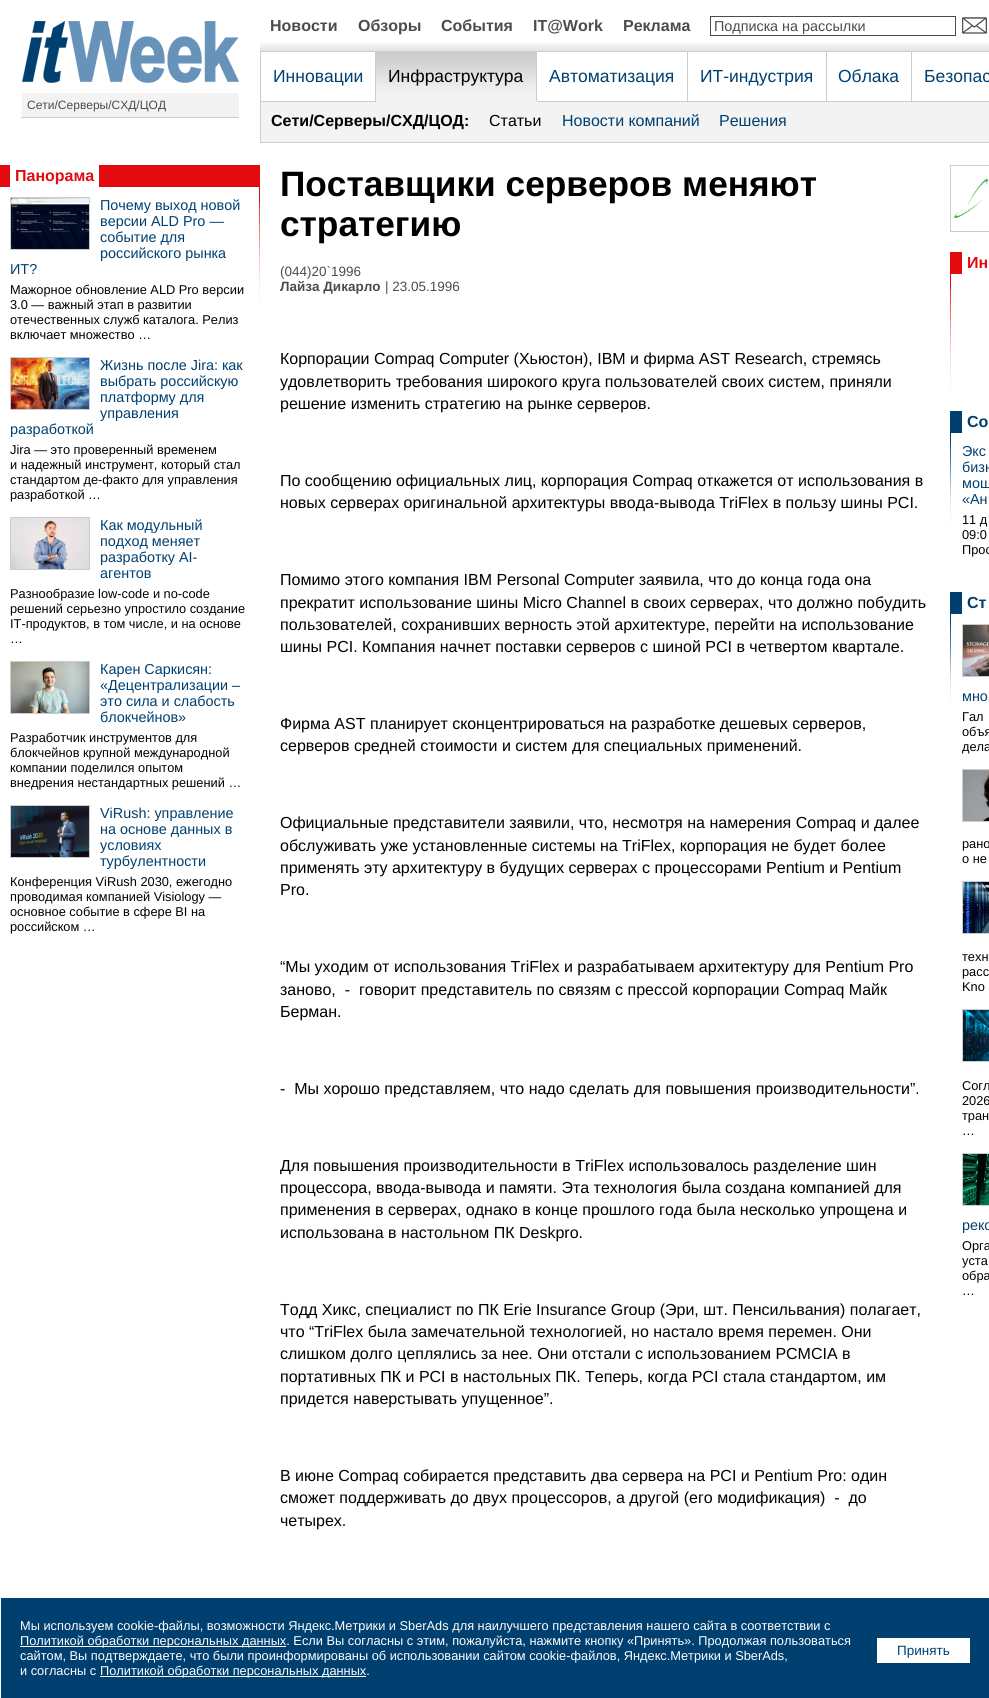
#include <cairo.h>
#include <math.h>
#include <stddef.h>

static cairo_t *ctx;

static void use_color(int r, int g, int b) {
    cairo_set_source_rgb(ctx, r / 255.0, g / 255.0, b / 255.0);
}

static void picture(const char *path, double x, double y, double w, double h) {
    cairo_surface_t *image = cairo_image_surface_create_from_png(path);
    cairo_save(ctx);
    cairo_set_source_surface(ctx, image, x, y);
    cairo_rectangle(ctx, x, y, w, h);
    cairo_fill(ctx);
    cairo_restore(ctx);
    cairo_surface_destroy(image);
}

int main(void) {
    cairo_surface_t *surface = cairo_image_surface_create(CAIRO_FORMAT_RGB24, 989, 1698);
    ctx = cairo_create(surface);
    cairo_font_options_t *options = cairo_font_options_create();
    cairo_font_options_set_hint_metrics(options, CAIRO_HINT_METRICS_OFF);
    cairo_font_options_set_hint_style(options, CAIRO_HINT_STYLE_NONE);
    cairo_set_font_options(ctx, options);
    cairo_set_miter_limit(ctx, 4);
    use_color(255, 255, 255);
    cairo_paint(ctx);
    picture("img1.png", 22, 21, 217, 62);
    use_color(243, 243, 243);
    cairo_rectangle(ctx, 22, 93, 217, 24);
    cairo_fill(ctx);
    use_color(204, 204, 204);
    cairo_rectangle(ctx, 21, 117, 218, 1);
    cairo_fill(ctx);
    cairo_select_font_face(ctx, "Liberation Sans", CAIRO_FONT_SLANT_NORMAL, CAIRO_FONT_WEIGHT_NORMAL);
    cairo_set_font_size(ctx, 12);
    use_color(76, 76, 76);
    cairo_move_to(ctx, 27, 109);
    cairo_show_text(ctx, "Сети/Серверы/СХД/ЦОД");
    picture("img2.png", 260, 43, 729, 8);
    cairo_select_font_face(ctx, "Liberation Sans", CAIRO_FONT_SLANT_NORMAL, CAIRO_FONT_WEIGHT_BOLD);
    cairo_set_font_size(ctx, 16);
    cairo_move_to(ctx, 270, 31);
    cairo_show_text(ctx, "Новости");
    cairo_move_to(ctx, 358, 31);
    cairo_show_text(ctx, "Обзоры");
    cairo_move_to(ctx, 441, 31);
    cairo_show_text(ctx, "События");
    cairo_move_to(ctx, 533, 31);
    cairo_show_text(ctx, "IT@Work");
    cairo_move_to(ctx, 623, 31);
    cairo_show_text(ctx, "Реклама");
    cairo_rectangle(ctx, 710.5, 16.5, 245, 19);
    cairo_set_line_width(ctx, 1);
    cairo_stroke(ctx);
    cairo_select_font_face(ctx, "Liberation Sans", CAIRO_FONT_SLANT_NORMAL, CAIRO_FONT_WEIGHT_NORMAL);
    cairo_set_font_size(ctx, 14.4);
    cairo_move_to(ctx, 714, 31);
    cairo_show_text(ctx, "Подписка на рассылки");
    picture("img3.png", 962, 17, 25, 17);
    use_color(204, 204, 204);
    cairo_rectangle(ctx, 911, 51, 78, 1);
    cairo_fill(ctx);
    cairo_rectangle(ctx, 260, 101, 729, 1);
    cairo_fill(ctx);
    cairo_rectangle(ctx, 911, 51, 1, 51);
    cairo_fill(ctx);
    cairo_rectangle(ctx, 826, 51, 86, 1);
    cairo_fill(ctx);
    cairo_rectangle(ctx, 826, 51, 1, 51);
    cairo_fill(ctx);
    cairo_rectangle(ctx, 687, 51, 140, 1);
    cairo_fill(ctx);
    cairo_rectangle(ctx, 687, 51, 1, 51);
    cairo_fill(ctx);
    cairo_rectangle(ctx, 536, 51, 152, 1);
    cairo_fill(ctx);
    cairo_rectangle(ctx, 536, 51, 1, 51);
    cairo_fill(ctx);
    cairo_rectangle(ctx, 375, 51, 162, 1);
    cairo_fill(ctx);
    use_color(243, 243, 243);
    cairo_rectangle(ctx, 375, 101, 162, 1);
    cairo_fill(ctx);
    use_color(204, 204, 204);
    cairo_rectangle(ctx, 375, 51, 1, 51);
    cairo_fill(ctx);
    cairo_rectangle(ctx, 260, 51, 116, 1);
    cairo_fill(ctx);
    cairo_rectangle(ctx, 260, 142, 729, 1);
    cairo_fill(ctx);
    cairo_rectangle(ctx, 260, 101, 1, 42);
    cairo_fill(ctx);
    cairo_rectangle(ctx, 260, 51, 1, 51);
    cairo_fill(ctx);
    cairo_set_font_size(ctx, 17.5);
    use_color(0, 64, 113);
    cairo_move_to(ctx, 273, 82);
    cairo_show_text(ctx, "Инновации");
    picture("img4.png", 376, 52, 160, 49);
    use_color(0, 0, 0);
    cairo_move_to(ctx, 388, 82);
    cairo_show_text(ctx, "Инфраструктура");
    use_color(0, 64, 113);
    cairo_move_to(ctx, 549, 82);
    cairo_show_text(ctx, "Автоматизация");
    cairo_move_to(ctx, 700, 82);
    cairo_show_text(ctx, "ИТ-индустрия");
    cairo_move_to(ctx, 838, 82);
    cairo_show_text(ctx, "Облака");
    cairo_move_to(ctx, 924, 82);
    cairo_show_text(ctx, "Безопас");
    use_color(243, 243, 243);
    cairo_rectangle(ctx, 261, 102, 728, 40);
    cairo_fill(ctx);
    cairo_select_font_face(ctx, "Liberation Sans", CAIRO_FONT_SLANT_NORMAL, CAIRO_FONT_WEIGHT_BOLD);
    cairo_set_font_size(ctx, 16);
    use_color(0, 0, 0);
    cairo_move_to(ctx, 271, 126);
    cairo_show_text(ctx, "Сети/Серверы/СХД/ЦОД:");
    cairo_select_font_face(ctx, "Liberation Sans", CAIRO_FONT_SLANT_NORMAL, CAIRO_FONT_WEIGHT_NORMAL);
    cairo_move_to(ctx, 489, 126);
    cairo_show_text(ctx, "Статьи");
    use_color(0, 64, 113);
    cairo_move_to(ctx, 562, 126);
    cairo_show_text(ctx, "Новости компаний");
    cairo_move_to(ctx, 719, 126);
    cairo_show_text(ctx, "Решения");
    use_color(227, 11, 16);
    cairo_rectangle(ctx, 0, 165, 260, 22);
    cairo_fill(ctx);
    use_color(255, 255, 255);
    cairo_rectangle(ctx, 10, 165, 89, 22);
    cairo_fill(ctx);
    cairo_select_font_face(ctx, "Liberation Sans", CAIRO_FONT_SLANT_NORMAL, CAIRO_FONT_WEIGHT_BOLD);
    use_color(227, 11, 16);
    cairo_move_to(ctx, 15, 181);
    cairo_show_text(ctx, "Панорама");
    cairo_rectangle(ctx, 10.5, 197.5, 79, 52);
    use_color(204, 204, 204);
    cairo_stroke(ctx);
    picture("img5.png", 11, 198, 78, 51);
    cairo_select_font_face(ctx, "Liberation Sans", CAIRO_FONT_SLANT_NORMAL, CAIRO_FONT_WEIGHT_NORMAL);
    cairo_set_font_size(ctx, 14.4);
    use_color(0, 64, 113);
    cairo_move_to(ctx, 100, 210);
    cairo_show_text(ctx, "Почему выход новой");
    cairo_move_to(ctx, 100, 226);
    cairo_show_text(ctx, "версии ALD Pro —");
    cairo_move_to(ctx, 100, 242);
    cairo_show_text(ctx, "событие для");
    cairo_move_to(ctx, 100, 258);
    cairo_show_text(ctx, "российского рынка");
    cairo_move_to(ctx, 10, 274);
    cairo_show_text(ctx, "ИТ?");
    cairo_set_font_size(ctx, 12.8);
    use_color(0, 0, 0);
    cairo_move_to(ctx, 10, 294);
    cairo_show_text(ctx, "Мажорное обновление ALD Pro версии");
    cairo_move_to(ctx, 10, 309);
    cairo_show_text(ctx, "3.0 — важный этап в развитии");
    cairo_move_to(ctx, 10, 324);
    cairo_show_text(ctx, "отечественных служб каталога. Релиз");
    cairo_move_to(ctx, 10, 339);
    cairo_show_text(ctx, "включает множество …");
    cairo_rectangle(ctx, 10.5, 357.5, 79, 52);
    use_color(204, 204, 204);
    cairo_stroke(ctx);
    picture("img6.png", 11, 358, 78, 51);
    cairo_set_font_size(ctx, 14.4);
    use_color(0, 64, 113);
    cairo_move_to(ctx, 100, 370);
    cairo_show_text(ctx, "Жизнь после Jira: как");
    cairo_move_to(ctx, 100, 386);
    cairo_show_text(ctx, "выбрать российскую");
    cairo_move_to(ctx, 100, 402);
    cairo_show_text(ctx, "платформу для");
    cairo_move_to(ctx, 100, 418);
    cairo_show_text(ctx, "управления");
    cairo_move_to(ctx, 10, 434);
    cairo_show_text(ctx, "разработкой");
    cairo_set_font_size(ctx, 12.8);
    use_color(0, 0, 0);
    cairo_move_to(ctx, 10, 454);
    cairo_show_text(ctx, "Jira — это проверенный временем");
    cairo_move_to(ctx, 10, 469);
    cairo_show_text(ctx, "и надежный инструмент, который стал");
    cairo_move_to(ctx, 10, 484);
    cairo_show_text(ctx, "стандартом де-факто для управления");
    cairo_move_to(ctx, 10, 499);
    cairo_show_text(ctx, "разработкой …");
    cairo_rectangle(ctx, 10.5, 517.5, 79, 52);
    use_color(204, 204, 204);
    cairo_stroke(ctx);
    picture("img7.png", 11, 518, 78, 51);
    cairo_set_font_size(ctx, 14.4);
    use_color(0, 64, 113);
    cairo_move_to(ctx, 100, 530);
    cairo_show_text(ctx, "Как модульный");
    cairo_move_to(ctx, 100, 546);
    cairo_show_text(ctx, "подход меняет");
    cairo_move_to(ctx, 100, 562);
    cairo_show_text(ctx, "разработку AI-");
    cairo_move_to(ctx, 100, 578);
    cairo_show_text(ctx, "агентов");
    cairo_set_font_size(ctx, 12.8);
    use_color(0, 0, 0);
    cairo_move_to(ctx, 10, 598);
    cairo_show_text(ctx, "Разнообразие low-code и no-code");
    cairo_move_to(ctx, 10, 613);
    cairo_show_text(ctx, "решений серьезно упростило создание");
    cairo_move_to(ctx, 10, 628);
    cairo_show_text(ctx, "IT-продуктов, в том числе, и на основе");
    cairo_move_to(ctx, 10, 643);
    cairo_show_text(ctx, "…");
    cairo_rectangle(ctx, 10.5, 661.5, 79, 52);
    use_color(204, 204, 204);
    cairo_stroke(ctx);
    picture("img8.png", 11, 662, 78, 51);
    cairo_set_font_size(ctx, 14.4);
    use_color(0, 64, 113);
    cairo_move_to(ctx, 100, 674);
    cairo_show_text(ctx, "Карен Саркисян:");
    cairo_move_to(ctx, 100, 690);
    cairo_show_text(ctx, "«Децентрализации –");
    cairo_move_to(ctx, 100, 706);
    cairo_show_text(ctx, "это сила и слабость");
    cairo_move_to(ctx, 100, 722);
    cairo_show_text(ctx, "блокчейнов»");
    cairo_set_font_size(ctx, 12.8);
    use_color(0, 0, 0);
    cairo_move_to(ctx, 10, 742);
    cairo_show_text(ctx, "Разработчик инструментов для");
    cairo_move_to(ctx, 10, 757);
    cairo_show_text(ctx, "блокчейнов крупной международной");
    cairo_move_to(ctx, 10, 772);
    cairo_show_text(ctx, "компании поделился опытом");
    cairo_move_to(ctx, 10, 787);
    cairo_show_text(ctx, "внедрения нестандартных решений …");
    cairo_rectangle(ctx, 10.5, 805.5, 79, 52);
    use_color(204, 204, 204);
    cairo_stroke(ctx);
    picture("img9.png", 11, 806, 78, 51);
    cairo_set_font_size(ctx, 14.4);
    use_color(0, 64, 113);
    cairo_move_to(ctx, 100, 818);
    cairo_show_text(ctx, "ViRush: управление");
    cairo_move_to(ctx, 100, 834);
    cairo_show_text(ctx, "на основе данных в");
    cairo_move_to(ctx, 100, 850);
    cairo_show_text(ctx, "условиях");
    cairo_move_to(ctx, 100, 866);
    cairo_show_text(ctx, "турбулентности");
    cairo_set_font_size(ctx, 12.8);
    use_color(0, 0, 0);
    cairo_move_to(ctx, 10, 886);
    cairo_show_text(ctx, "Конференция ViRush 2030, ежегодно");
    cairo_move_to(ctx, 10, 901);
    cairo_show_text(ctx, "проводимая компанией Visiology —");
    cairo_move_to(ctx, 10, 916);
    cairo_show_text(ctx, "основное событие в сфере BI на");
    cairo_move_to(ctx, 10, 931);
    cairo_show_text(ctx, "российском …");
    picture("img10.png", 259, 187, 1, 117);
    cairo_select_font_face(ctx, "Liberation Sans", CAIRO_FONT_SLANT_NORMAL, CAIRO_FONT_WEIGHT_BOLD);
    cairo_set_font_size(ctx, 35.25);
    cairo_move_to(ctx, 280, 196);
    cairo_show_text(ctx, "Поставщики серверов меняют");
    cairo_move_to(ctx, 280, 236);
    cairo_show_text(ctx, "стратегию");
    cairo_select_font_face(ctx, "Liberation Sans", CAIRO_FONT_SLANT_NORMAL, CAIRO_FONT_WEIGHT_NORMAL);
    cairo_set_font_size(ctx, 13.5);
    use_color(76, 76, 76);
    cairo_move_to(ctx, 280, 276);
    cairo_show_text(ctx, "(044)20`1996");
    cairo_select_font_face(ctx, "Liberation Sans", CAIRO_FONT_SLANT_NORMAL, CAIRO_FONT_WEIGHT_BOLD);
    cairo_move_to(ctx, 280, 291);
    cairo_show_text(ctx, "Лайза Дикарло");
    cairo_select_font_face(ctx, "Liberation Sans", CAIRO_FONT_SLANT_NORMAL, CAIRO_FONT_WEIGHT_NORMAL);
    cairo_move_to(ctx, 385, 291);
    cairo_show_text(ctx, "| 23.05.1996");
    cairo_set_font_size(ctx, 16);
    use_color(0, 0, 0);
    cairo_move_to(ctx, 280, 364);
    cairo_show_text(ctx, "Корпорации Compaq Computer (Хьюстон), IBM и фирма AST Research, стремясь");
    cairo_move_to(ctx, 280, 387);
    cairo_show_text(ctx, "удовлетворить требования широкого круга пользователей своих систем, приняли");
    cairo_move_to(ctx, 280, 409);
    cairo_show_text(ctx, "решение изменить стратегию на рынке серверов.");
    cairo_move_to(ctx, 280, 486);
    cairo_show_text(ctx, "По сообщению официальных лиц, корпорация Compaq откажется от использования в");
    cairo_move_to(ctx, 280, 508);
    cairo_show_text(ctx, "новых серверах оригинальной архитектуры ввода-вывода TriFlex в пользу шины PCI.");
    cairo_move_to(ctx, 280, 585);
    cairo_show_text(ctx, "Помимо этого компания IBM Personal Computer заявила, что до конца года она");
    cairo_move_to(ctx, 280, 608);
    cairo_show_text(ctx, "прекратит использование шины Micro Channel в своих серверах, что должно побудить");
    cairo_move_to(ctx, 280, 630);
    cairo_show_text(ctx, "пользователей, сохранивших верность этой архитектуре, перейти на использование");
    cairo_move_to(ctx, 280, 652);
    cairo_show_text(ctx, "шины PCI. Компания начнет поставки серверов с шиной PCI в четвертом квартале.");
    cairo_move_to(ctx, 280, 729);
    cairo_show_text(ctx, "Фирма AST планирует сконцентрироваться на разработке дешевых серверов,");
    cairo_move_to(ctx, 280, 751);
    cairo_show_text(ctx, "серверов средней стоимости и систем для специальных применений.");
    cairo_move_to(ctx, 280, 828);
    cairo_show_text(ctx, "Официальные представители заявили, что, несмотря на намерения Compaq и далее");
    cairo_move_to(ctx, 280, 851);
    cairo_show_text(ctx, "обслуживать уже установленные системы на TriFlex, корпорация не будет более");
    cairo_move_to(ctx, 280, 873);
    cairo_show_text(ctx, "применять эту архитектуру в будущих серверах с процессорами Pentium и Pentium");
    cairo_move_to(ctx, 280, 895);
    cairo_show_text(ctx, "Pro.");
    cairo_move_to(ctx, 280, 972);
    cairo_show_text(ctx, "“Мы уходим от использования TriFlex и разрабатываем архитектуру для Pentium Pro");
    cairo_move_to(ctx, 280, 995);
    cairo_show_text(ctx, "заново,  -  говорит представитель по связям с прессой корпорации Compaq Майк");
    cairo_move_to(ctx, 280, 1017);
    cairo_show_text(ctx, "Берман.");
    cairo_move_to(ctx, 280, 1094);
    cairo_show_text(ctx, "-  Мы хорошо представляем, что надо сделать для повышения производительности”.");
    cairo_move_to(ctx, 280, 1171);
    cairo_show_text(ctx, "Для повышения производительности в TriFlex использовалось разделение шин");
    cairo_move_to(ctx, 280, 1193);
    cairo_show_text(ctx, "процессора, ввода-вывода и памяти. Эта технология была создана компанией для");
    cairo_move_to(ctx, 280, 1215);
    cairo_show_text(ctx, "применения в серверах, однако в конце прошлого года была несколько упрощена и");
    cairo_move_to(ctx, 280, 1238);
    cairo_show_text(ctx, "использована в настольном ПК Deskpro.");
    cairo_move_to(ctx, 280, 1315);
    cairo_show_text(ctx, "Тодд Хикс, специалист по ПК Erie Insurance Group (Эри, шт. Пенсильвания) полагает,");
    cairo_move_to(ctx, 280, 1337);
    cairo_show_text(ctx, "что “TriFlex была замечательной технологией, но настало время перемен. Они");
    cairo_move_to(ctx, 280, 1359);
    cairo_show_text(ctx, "слишком долго цеплялись за нее. Они отстали с использованием PCMCIA в");
    cairo_move_to(ctx, 280, 1382);
    cairo_show_text(ctx, "портативных ПК и PCI в настольных ПК. Теперь, когда PCI стала стандартом, им");
    cairo_move_to(ctx, 280, 1404);
    cairo_show_text(ctx, "придется наверстывать упущенное”.");
    cairo_move_to(ctx, 280, 1481);
    cairo_show_text(ctx, "В июне Compaq собирается представить два сервера на PCI и Pentium Pro: один");
    cairo_move_to(ctx, 280, 1503);
    cairo_show_text(ctx, "сможет поддерживать до двух процессоров, а другой (его модификация)  -  до");
    cairo_move_to(ctx, 280, 1526);
    cairo_show_text(ctx, "четырех.");
    cairo_rectangle(ctx, 950.5, 165.5, 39, 66);
    use_color(204, 204, 204);
    cairo_stroke(ctx);
    picture("img11.png", 951, 166, 38, 57);
    use_color(227, 11, 16);
    cairo_rectangle(ctx, 950, 252, 12, 22);
    cairo_fill(ctx);
    cairo_select_font_face(ctx, "Liberation Sans", CAIRO_FONT_SLANT_NORMAL, CAIRO_FONT_WEIGHT_BOLD);
    cairo_move_to(ctx, 967, 268);
    cairo_show_text(ctx, "Ин");
    picture("img10.png", 950, 274, 1, 117);
    use_color(0, 64, 113);
    cairo_rectangle(ctx, 950, 411, 12, 22);
    cairo_fill(ctx);
    cairo_move_to(ctx, 967, 427);
    cairo_show_text(ctx, "Со");
    picture("img12.png", 950, 433, 1, 93);
    cairo_select_font_face(ctx, "Liberation Sans", CAIRO_FONT_SLANT_NORMAL, CAIRO_FONT_WEIGHT_NORMAL);
    cairo_set_font_size(ctx, 14.4);
    cairo_move_to(ctx, 962, 456);
    cairo_show_text(ctx, "Экс");
    cairo_move_to(ctx, 962, 472);
    cairo_show_text(ctx, "бизн");
    cairo_move_to(ctx, 962, 488);
    cairo_show_text(ctx, "мош");
    cairo_move_to(ctx, 962, 504);
    cairo_show_text(ctx, "«Ан");
    cairo_set_font_size(ctx, 12.8);
    use_color(0, 0, 0);
    cairo_move_to(ctx, 962, 524);
    cairo_show_text(ctx, "11 д");
    cairo_move_to(ctx, 962, 539);
    cairo_show_text(ctx, "09:0");
    cairo_move_to(ctx, 962, 554);
    cairo_show_text(ctx, "Прос");
    use_color(0, 64, 113);
    cairo_rectangle(ctx, 950, 592, 12, 22);
    cairo_fill(ctx);
    cairo_select_font_face(ctx, "Liberation Sans", CAIRO_FONT_SLANT_NORMAL, CAIRO_FONT_WEIGHT_BOLD);
    cairo_set_font_size(ctx, 16);
    cairo_move_to(ctx, 967, 608);
    cairo_show_text(ctx, "Ст");
    picture("img12.png", 950, 614, 1, 93);
    cairo_rectangle(ctx, 962.5, 624.5, 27, 52);
    use_color(204, 204, 204);
    cairo_stroke(ctx);
    picture("img13.png", 963, 625, 26, 51);
    cairo_select_font_face(ctx, "Liberation Sans", CAIRO_FONT_SLANT_NORMAL, CAIRO_FONT_WEIGHT_NORMAL);
    cairo_set_font_size(ctx, 14.4);
    use_color(0, 64, 113);
    cairo_move_to(ctx, 962, 701);
    cairo_show_text(ctx, "мно");
    cairo_set_font_size(ctx, 12.8);
    use_color(0, 0, 0);
    cairo_move_to(ctx, 962, 721);
    cairo_show_text(ctx, "Гал");
    cairo_move_to(ctx, 962, 736);
    cairo_show_text(ctx, "объя");
    cairo_move_to(ctx, 962, 751);
    cairo_show_text(ctx, "дела");
    cairo_rectangle(ctx, 962.5, 769.5, 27, 52);
    use_color(204, 204, 204);
    cairo_stroke(ctx);
    picture("img14.png", 963, 770, 26, 51);
    use_color(0, 0, 0);
    cairo_move_to(ctx, 962, 848);
    cairo_show_text(ctx, "рано");
    cairo_move_to(ctx, 962, 863);
    cairo_show_text(ctx, "о не");
    cairo_rectangle(ctx, 962.5, 881.5, 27, 52);
    use_color(204, 204, 204);
    cairo_stroke(ctx);
    picture("img15.png", 963, 882, 26, 51);
    use_color(0, 0, 0);
    cairo_move_to(ctx, 962, 961);
    cairo_show_text(ctx, "техн");
    cairo_move_to(ctx, 962, 976);
    cairo_show_text(ctx, "расс");
    cairo_move_to(ctx, 962, 991);
    cairo_show_text(ctx, "Kno");
    cairo_rectangle(ctx, 962.5, 1009.5, 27, 52);
    use_color(204, 204, 204);
    cairo_stroke(ctx);
    picture("img16.png", 963, 1010, 26, 51);
    use_color(0, 0, 0);
    cairo_move_to(ctx, 962, 1090);
    cairo_show_text(ctx, "Согл");
    cairo_move_to(ctx, 962, 1105);
    cairo_show_text(ctx, "2026");
    cairo_move_to(ctx, 962, 1120);
    cairo_show_text(ctx, "тран");
    cairo_move_to(ctx, 962, 1135);
    cairo_show_text(ctx, "…");
    cairo_rectangle(ctx, 962.5, 1153.5, 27, 52);
    use_color(204, 204, 204);
    cairo_stroke(ctx);
    picture("img17.png", 963, 1154, 26, 51);
    cairo_set_font_size(ctx, 14.4);
    use_color(0, 64, 113);
    cairo_move_to(ctx, 962, 1230);
    cairo_show_text(ctx, "реко");
    cairo_set_font_size(ctx, 12.8);
    use_color(0, 0, 0);
    cairo_move_to(ctx, 962, 1250);
    cairo_show_text(ctx, "Орга");
    cairo_move_to(ctx, 962, 1265);
    cairo_show_text(ctx, "уста");
    cairo_move_to(ctx, 962, 1280);
    cairo_show_text(ctx, "обра");
    cairo_move_to(ctx, 962, 1295);
    cairo_show_text(ctx, "…");
    use_color(0, 64, 113);
    cairo_rectangle(ctx, 1, 1598, 988, 100);
    cairo_fill(ctx);
    use_color(255, 255, 255);
    cairo_move_to(ctx, 20, 1630);
    cairo_show_text(ctx, "Мы используем cookie-файлы, возможности Яндекс.Метрики и SberAds для наилучшего представления нашего сайта в соответствии с");
    cairo_rectangle(ctx, 20, 1646, 266, 1);
    cairo_fill(ctx);
    cairo_move_to(ctx, 20, 1645);
    cairo_show_text(ctx, "Политикой обработки персональных данных. Если Вы согласны с этим, пожалуйста, нажмите кнопку «Принять». Продолжая пользоваться");
    cairo_move_to(ctx, 20, 1660);
    cairo_show_text(ctx, "сайтом, Вы подтверждаете, что были проинформированы об использовании сайтом cookie-файлов, Яндекс.Метрики и SberAds,");
    cairo_rectangle(ctx, 877, 1638, 93, 25);
    cairo_fill(ctx);
    cairo_set_font_size(ctx, 13.5);
    use_color(0, 64, 113);
    cairo_move_to(ctx, 897, 1655);
    cairo_show_text(ctx, "Принять");
    cairo_set_font_size(ctx, 12.8);
    use_color(255, 255, 255);
    cairo_move_to(ctx, 20, 1675);
    cairo_show_text(ctx, "и согласны с");
    cairo_rectangle(ctx, 100, 1676, 266, 1);
    cairo_fill(ctx);
    cairo_move_to(ctx, 100, 1675);
    cairo_show_text(ctx, "Политикой обработки персональных данных.");
    cairo_surface_write_to_png(surface, "result.png");
    cairo_font_options_destroy(options);
    cairo_destroy(ctx);
    cairo_surface_destroy(surface);
    return 0;
}
